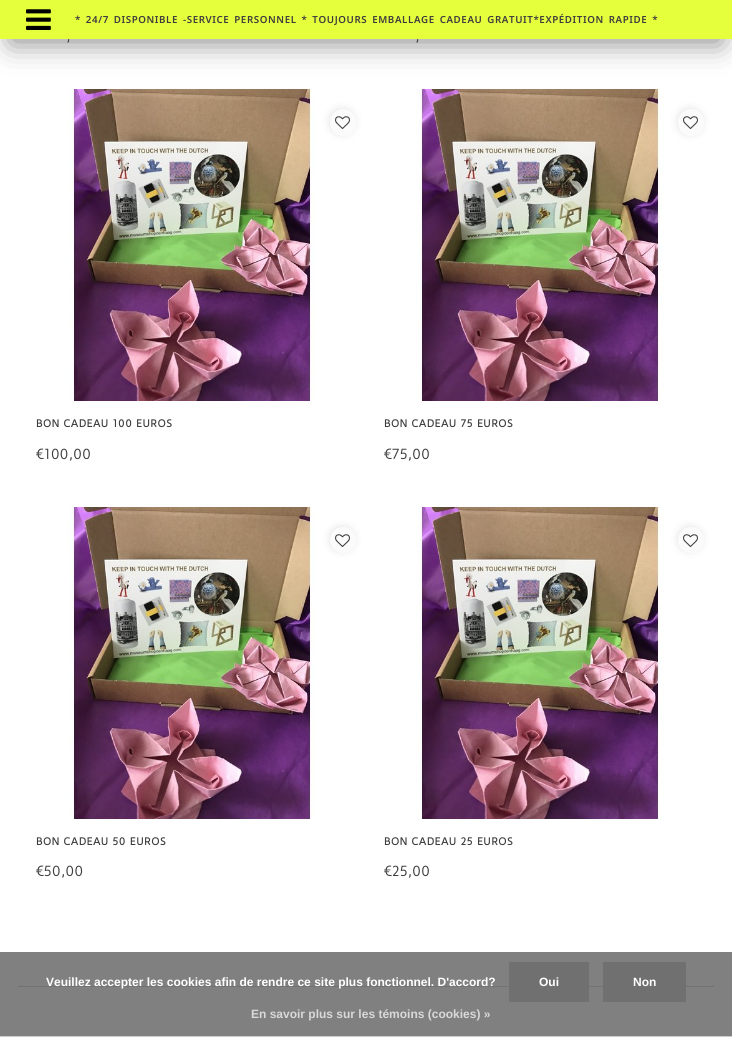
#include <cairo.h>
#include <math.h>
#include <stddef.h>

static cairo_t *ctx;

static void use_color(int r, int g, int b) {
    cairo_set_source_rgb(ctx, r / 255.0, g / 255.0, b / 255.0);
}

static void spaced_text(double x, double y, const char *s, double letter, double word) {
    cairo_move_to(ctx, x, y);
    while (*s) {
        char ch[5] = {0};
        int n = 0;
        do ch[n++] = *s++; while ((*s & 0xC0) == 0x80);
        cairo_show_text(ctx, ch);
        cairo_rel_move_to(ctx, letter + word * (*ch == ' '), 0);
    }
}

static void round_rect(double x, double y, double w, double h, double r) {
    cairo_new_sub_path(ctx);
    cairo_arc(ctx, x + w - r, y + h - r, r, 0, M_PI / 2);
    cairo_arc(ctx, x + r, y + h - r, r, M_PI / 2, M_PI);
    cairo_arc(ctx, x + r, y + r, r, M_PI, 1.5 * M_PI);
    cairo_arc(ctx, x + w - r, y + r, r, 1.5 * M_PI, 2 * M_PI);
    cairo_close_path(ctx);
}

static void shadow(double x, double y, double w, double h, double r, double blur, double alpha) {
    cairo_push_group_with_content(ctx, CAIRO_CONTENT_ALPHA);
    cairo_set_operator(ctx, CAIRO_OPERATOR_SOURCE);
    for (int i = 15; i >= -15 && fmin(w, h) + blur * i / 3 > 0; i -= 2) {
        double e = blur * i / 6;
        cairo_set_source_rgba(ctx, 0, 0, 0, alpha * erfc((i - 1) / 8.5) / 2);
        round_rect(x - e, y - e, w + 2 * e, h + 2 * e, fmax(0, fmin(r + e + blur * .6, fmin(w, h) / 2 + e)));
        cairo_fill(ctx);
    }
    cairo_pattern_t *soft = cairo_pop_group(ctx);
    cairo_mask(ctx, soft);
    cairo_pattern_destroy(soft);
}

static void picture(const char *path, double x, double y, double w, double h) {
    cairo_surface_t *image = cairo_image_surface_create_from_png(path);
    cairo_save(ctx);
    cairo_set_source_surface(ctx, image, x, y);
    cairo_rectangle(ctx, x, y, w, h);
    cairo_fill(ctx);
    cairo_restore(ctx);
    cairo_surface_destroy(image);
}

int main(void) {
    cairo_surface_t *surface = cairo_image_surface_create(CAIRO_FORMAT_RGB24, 732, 1037);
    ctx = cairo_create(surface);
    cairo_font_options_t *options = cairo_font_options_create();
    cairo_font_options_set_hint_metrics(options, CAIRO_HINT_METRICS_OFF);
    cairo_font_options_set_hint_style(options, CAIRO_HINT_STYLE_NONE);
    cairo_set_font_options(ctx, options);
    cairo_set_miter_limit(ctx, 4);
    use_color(255, 255, 255);
    cairo_paint(ctx);
    use_color(128, 128, 128);
    cairo_rectangle(ctx, 0, 952, 732, 84);
    cairo_fill(ctx);
    use_color(0, 0, 0);
    shadow(13, 28, 706, 13, 0, 15.5, 0.51);
    use_color(230, 255, 60);
    cairo_rectangle(ctx, 0, 0, 732, 39);
    cairo_fill(ctx);
    picture("img1.png", 26, 9, 25, 21);
    cairo_select_font_face(ctx, "Noto Sans SemiBold", CAIRO_FONT_SLANT_NORMAL, CAIRO_FONT_WEIGHT_NORMAL);
    cairo_set_font_size(ctx, 9.75);
    use_color(61, 61, 61);
    spaced_text(75, 23, "* 24/7 DISPONIBLE -SERVICE PERSONNEL * TOUJOURS EMBALLAGE CADEAU GRATUIT*EXPÉDITION RAPIDE *", 0.6, 1.75);
    cairo_select_font_face(ctx, "Duru Sans", CAIRO_FONT_SLANT_NORMAL, CAIRO_FONT_WEIGHT_NORMAL);
    cairo_set_font_size(ctx, 13.5);
    cairo_move_to(ctx, 66, 41);
    cairo_show_text(ctx, ",");
    cairo_move_to(ctx, 415, 41);
    cairo_show_text(ctx, ",");
    picture("img2.png", 68, 89, 248, 312);
    use_color(218, 218, 218);
    shadow(331, 110, 22, 23, 11, 4.5, 1);
    use_color(251, 251, 251);
    round_rect(330, 109, 26, 27, 13);
    cairo_fill(ctx);
    picture("img3.png", 335, 116, 15, 13);
    cairo_select_font_face(ctx, "Duru Sans", CAIRO_FONT_SLANT_NORMAL, CAIRO_FONT_WEIGHT_BOLD);
    cairo_set_font_size(ctx, 9.75);
    use_color(61, 61, 61);
    spaced_text(36, 427, "BON CADEAU 100 EUROS", 0.6, 0);
    cairo_select_font_face(ctx, "Duru Sans", CAIRO_FONT_SLANT_NORMAL, CAIRO_FONT_WEIGHT_NORMAL);
    cairo_set_font_size(ctx, 13.5);
    cairo_move_to(ctx, 36, 459);
    cairo_show_text(ctx, "€100,00");
    picture("img2.png", 416, 89, 248, 312);
    use_color(218, 218, 218);
    shadow(679, 110, 22, 23, 11, 4.5, 1);
    use_color(251, 251, 251);
    round_rect(678, 109, 26, 27, 13);
    cairo_fill(ctx);
    picture("img3.png", 683, 116, 15, 13);
    cairo_select_font_face(ctx, "Duru Sans", CAIRO_FONT_SLANT_NORMAL, CAIRO_FONT_WEIGHT_BOLD);
    cairo_set_font_size(ctx, 9.75);
    use_color(61, 61, 61);
    spaced_text(384, 427, "BON CADEAU 75 EUROS", 0.6, 0);
    cairo_select_font_face(ctx, "Duru Sans", CAIRO_FONT_SLANT_NORMAL, CAIRO_FONT_WEIGHT_NORMAL);
    cairo_set_font_size(ctx, 13.5);
    cairo_move_to(ctx, 384, 459);
    cairo_show_text(ctx, "€75,00");
    picture("img2.png", 68, 507, 248, 312);
    use_color(218, 218, 218);
    shadow(331, 528, 22, 22, 11, 4.5, 1);
    use_color(251, 251, 251);
    cairo_arc(ctx, 343, 540, 13, 0, 2 * M_PI);
    cairo_fill(ctx);
    picture("img3.png", 335, 534, 15, 13);
    cairo_select_font_face(ctx, "Duru Sans", CAIRO_FONT_SLANT_NORMAL, CAIRO_FONT_WEIGHT_BOLD);
    cairo_set_font_size(ctx, 9.75);
    use_color(61, 61, 61);
    spaced_text(36, 845, "BON CADEAU 50 EUROS", 0.6, 0);
    cairo_select_font_face(ctx, "Duru Sans", CAIRO_FONT_SLANT_NORMAL, CAIRO_FONT_WEIGHT_NORMAL);
    cairo_set_font_size(ctx, 13.5);
    cairo_move_to(ctx, 36, 876);
    cairo_show_text(ctx, "€50,00");
    picture("img4.png", 416, 507, 248, 312);
    use_color(218, 218, 218);
    shadow(679, 528, 22, 22, 11, 4.5, 1);
    use_color(251, 251, 251);
    cairo_arc(ctx, 691, 540, 13, 0, 2 * M_PI);
    cairo_fill(ctx);
    picture("img3.png", 683, 534, 15, 13);
    cairo_select_font_face(ctx, "Duru Sans", CAIRO_FONT_SLANT_NORMAL, CAIRO_FONT_WEIGHT_BOLD);
    cairo_set_font_size(ctx, 9.75);
    use_color(61, 61, 61);
    spaced_text(384, 845, "BON CADEAU 25 EUROS", 0.6, 0);
    cairo_select_font_face(ctx, "Duru Sans", CAIRO_FONT_SLANT_NORMAL, CAIRO_FONT_WEIGHT_NORMAL);
    cairo_set_font_size(ctx, 13.5);
    cairo_move_to(ctx, 384, 876);
    cairo_show_text(ctx, "€25,00");
    use_color(114, 114, 114);
    cairo_rectangle(ctx, 18, 986, 696, 1);
    cairo_fill(ctx);
    use_color(204, 204, 204);
    cairo_rectangle(ctx, 0, 1036, 732, 1);
    cairo_fill(ctx);
    cairo_select_font_face(ctx, "Liberation Sans", CAIRO_FONT_SLANT_NORMAL, CAIRO_FONT_WEIGHT_BOLD);
    cairo_set_font_size(ctx, 12);
    use_color(255, 255, 255);
    cairo_move_to(ctx, 46, 986);
    cairo_show_text(ctx, "Veuillez accepter les cookies afin de rendre ce site plus fonctionnel. D'accord?");
    use_color(112, 112, 112);
    cairo_rectangle(ctx, 509, 962, 80, 40);
    cairo_fill(ctx);
    use_color(255, 255, 255);
    cairo_move_to(ctx, 539, 986);
    cairo_show_text(ctx, "Oui");
    use_color(112, 112, 112);
    cairo_rectangle(ctx, 603, 962, 83, 40);
    cairo_fill(ctx);
    use_color(255, 255, 255);
    cairo_move_to(ctx, 633, 986);
    cairo_show_text(ctx, "Non");
    use_color(217, 217, 217);
    cairo_move_to(ctx, 251, 1018);
    cairo_show_text(ctx, "En savoir plus sur les témoins (cookies) »");
    cairo_surface_write_to_png(surface, "result.png");
    cairo_font_options_destroy(options);
    cairo_destroy(ctx);
    cairo_surface_destroy(surface);
    return 0;
}
